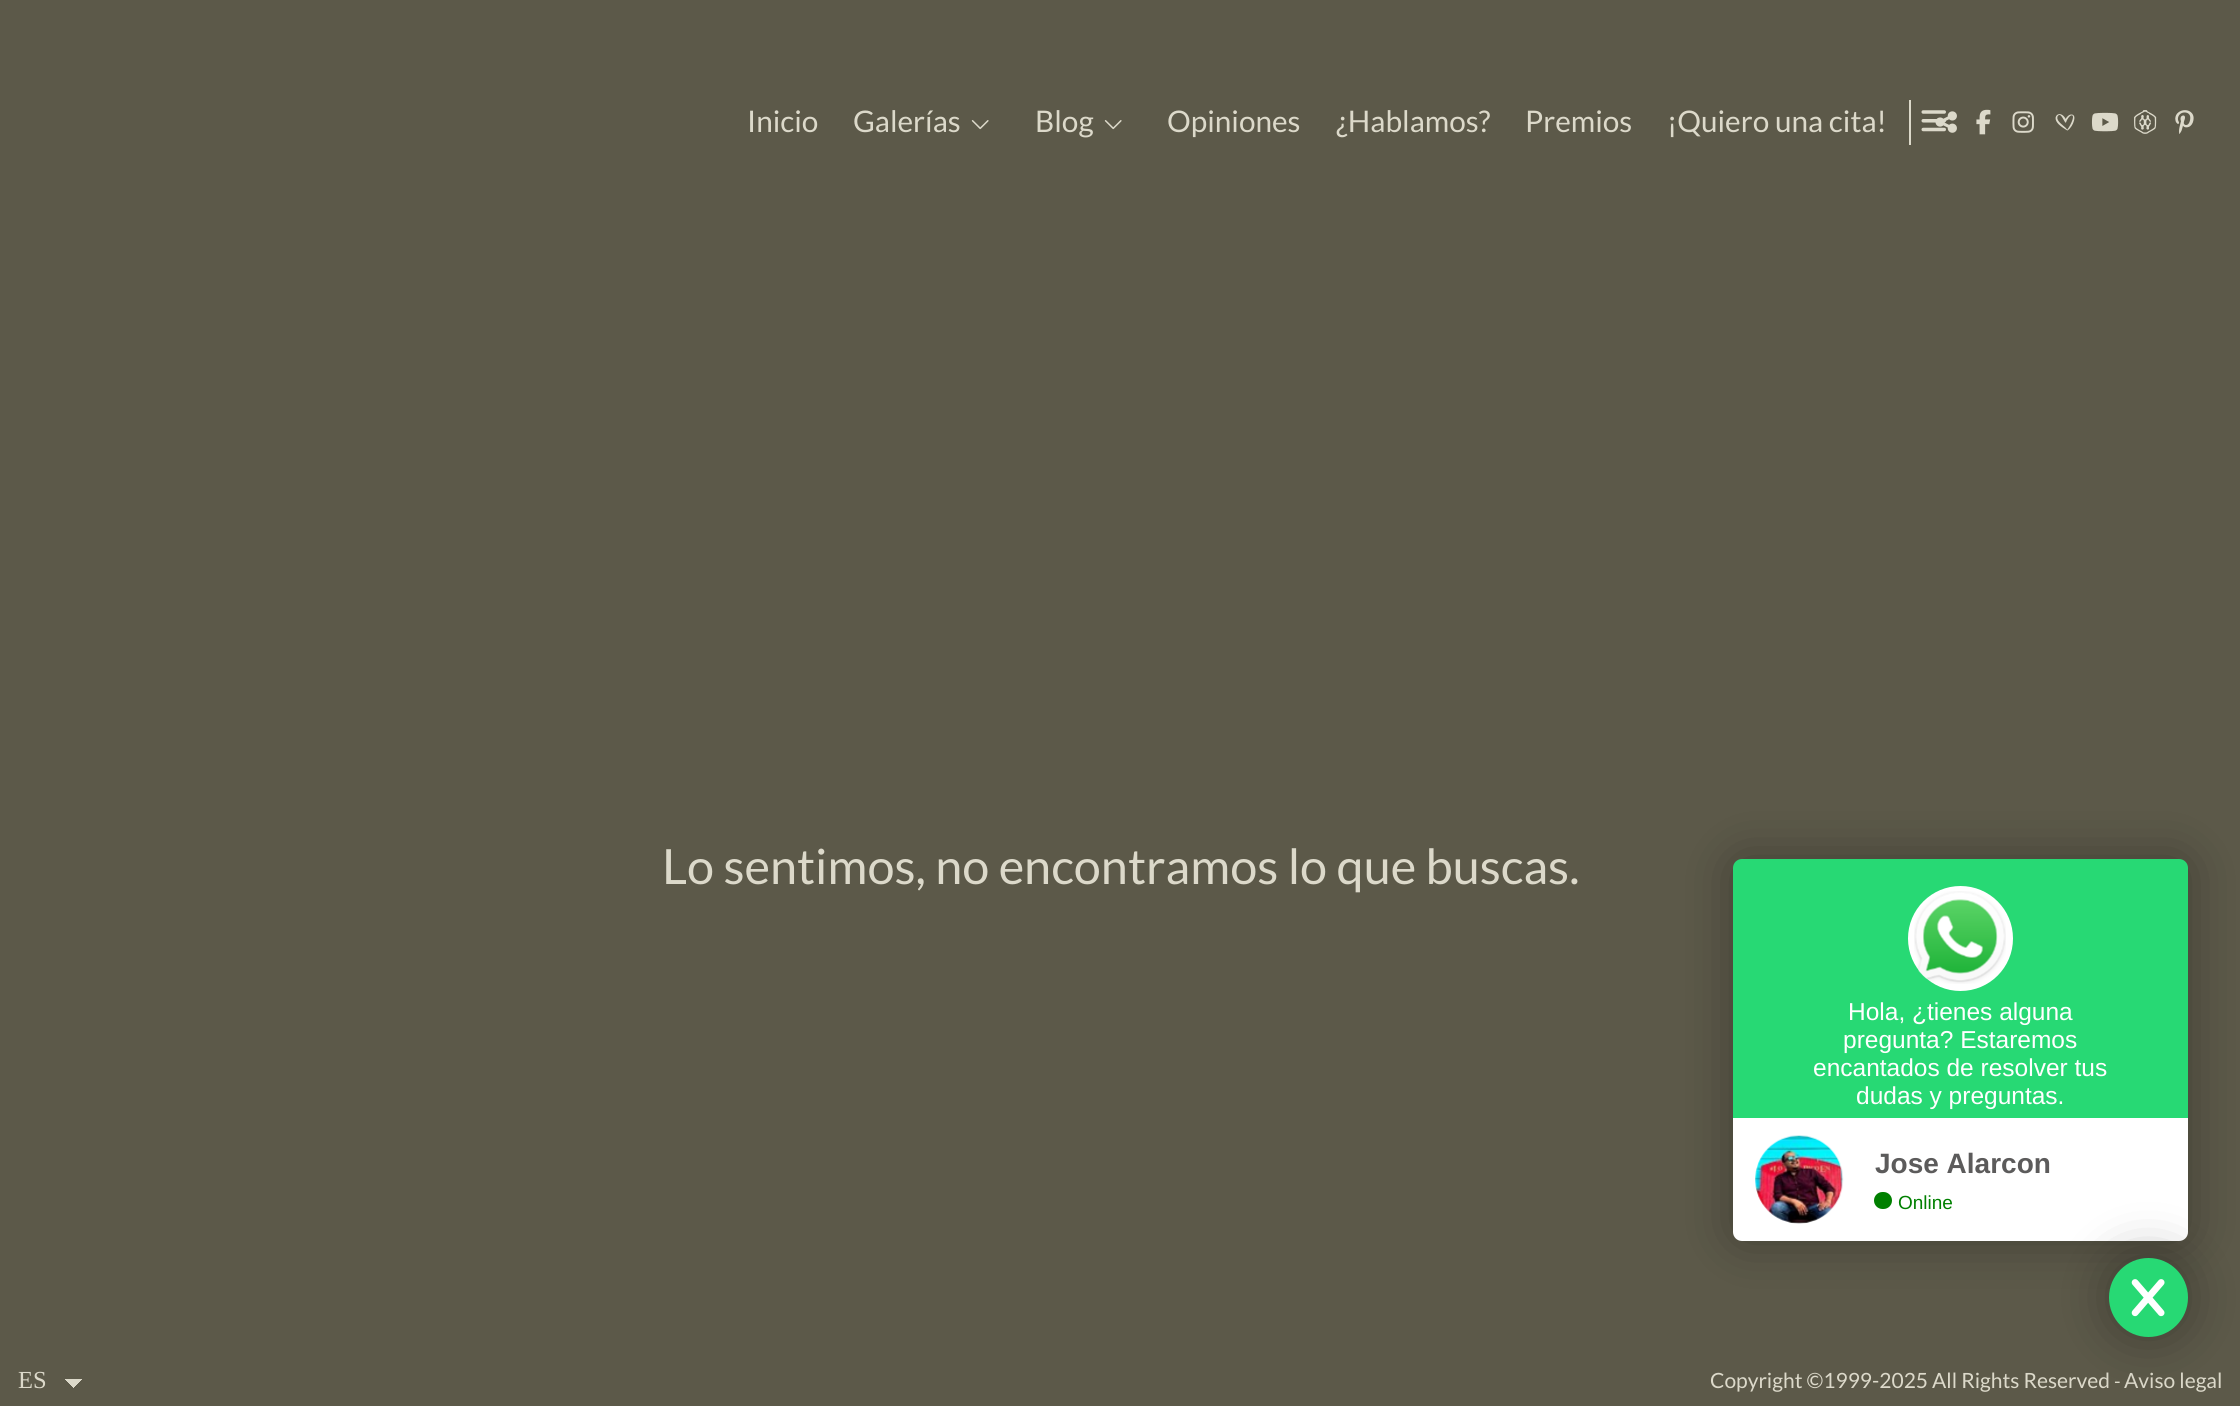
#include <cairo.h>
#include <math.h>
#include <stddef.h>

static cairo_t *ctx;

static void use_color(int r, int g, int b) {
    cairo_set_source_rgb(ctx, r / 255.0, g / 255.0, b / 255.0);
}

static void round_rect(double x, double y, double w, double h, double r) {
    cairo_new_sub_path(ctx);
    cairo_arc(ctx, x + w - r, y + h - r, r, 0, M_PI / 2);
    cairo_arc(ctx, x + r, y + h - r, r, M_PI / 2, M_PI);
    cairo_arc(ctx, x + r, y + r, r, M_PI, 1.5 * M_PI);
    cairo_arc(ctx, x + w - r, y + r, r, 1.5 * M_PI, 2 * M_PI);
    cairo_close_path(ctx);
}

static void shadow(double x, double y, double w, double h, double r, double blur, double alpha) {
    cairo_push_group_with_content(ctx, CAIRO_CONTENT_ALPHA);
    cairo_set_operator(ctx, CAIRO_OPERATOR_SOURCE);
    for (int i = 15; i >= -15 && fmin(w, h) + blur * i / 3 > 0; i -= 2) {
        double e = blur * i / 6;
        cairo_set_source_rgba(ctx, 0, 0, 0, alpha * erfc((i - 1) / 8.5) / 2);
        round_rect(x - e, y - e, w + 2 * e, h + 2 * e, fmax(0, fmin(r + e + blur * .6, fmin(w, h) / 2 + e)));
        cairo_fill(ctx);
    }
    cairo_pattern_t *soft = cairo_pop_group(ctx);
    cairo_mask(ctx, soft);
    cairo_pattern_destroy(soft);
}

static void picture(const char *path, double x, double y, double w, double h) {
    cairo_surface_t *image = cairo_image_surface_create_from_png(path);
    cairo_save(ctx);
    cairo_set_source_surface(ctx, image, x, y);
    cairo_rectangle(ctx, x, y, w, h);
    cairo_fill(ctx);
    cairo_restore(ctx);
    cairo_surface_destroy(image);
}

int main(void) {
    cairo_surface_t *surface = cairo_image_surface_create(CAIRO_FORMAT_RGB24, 2240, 1406);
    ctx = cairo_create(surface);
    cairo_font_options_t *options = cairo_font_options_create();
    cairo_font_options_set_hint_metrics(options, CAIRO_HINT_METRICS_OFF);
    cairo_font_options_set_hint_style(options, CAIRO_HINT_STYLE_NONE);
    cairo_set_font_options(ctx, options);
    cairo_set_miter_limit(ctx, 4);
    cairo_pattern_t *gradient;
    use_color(92, 89, 73);
    cairo_paint(ctx);
    cairo_select_font_face(ctx, "Lato", CAIRO_FONT_SLANT_NORMAL, CAIRO_FONT_WEIGHT_NORMAL);
    cairo_set_font_size(ctx, 29.75);
    use_color(220, 217, 202);
    cairo_move_to(ctx, 747, 132);
    cairo_show_text(ctx, "Inicio");
    cairo_move_to(ctx, 853, 132);
    cairo_show_text(ctx, "Galerías");
    picture("img1.png", 971, 120, 18, 10);
    cairo_move_to(ctx, 1035, 132);
    cairo_show_text(ctx, "Blog");
    picture("img1.png", 1104, 120, 18, 10);
    cairo_move_to(ctx, 1167, 132);
    cairo_show_text(ctx, "Opiniones");
    cairo_move_to(ctx, 1336, 132);
    cairo_show_text(ctx, "¿Hablamos?");
    cairo_move_to(ctx, 1525, 132);
    cairo_show_text(ctx, "Premios");
    cairo_move_to(ctx, 1667, 132);
    cairo_show_text(ctx, "¡Quiero una cita!");
    picture("img3.png", 1935, 111, 22, 22);
    picture("img2.png", 1921, 110, 25, 22);
    cairo_rectangle(ctx, 1909, 100, 2, 45);
    cairo_fill(ctx);
    picture("img4.png", 1976, 109, 15, 26);
    picture("img5.png", 2012, 111, 22, 22);
    picture("img6.png", 2055, 114, 20, 17);
    picture("img7.png", 2091, 112, 28, 20);
    picture("img8.png", 2134, 110, 23, 24);
    picture("img9.png", 2175, 110, 19, 24);
    cairo_set_font_size(ctx, 48.6);
    cairo_move_to(ctx, 662, 884);
    cairo_show_text(ctx, "Lo sentimos, no encontramos lo que buscas.");
    gradient = cairo_pattern_create_linear(74, 1380, 82, 1388);
    cairo_pattern_add_color_stop_rgba(gradient, 0.5, 0.863, 0.851, 0.792, 1);
    cairo_pattern_add_color_stop_rgba(gradient, 0.5, 0.361, 0.349, 0.286, 1);
    cairo_set_source(ctx, gradient);
    cairo_pattern_destroy(gradient);
    cairo_rectangle(ctx, 74, 1379, 8, 9);
    cairo_fill(ctx);
    gradient = cairo_pattern_create_linear(65, 1388, 74, 1380);
    cairo_pattern_add_color_stop_rgba(gradient, 0.5, 0.361, 0.349, 0.286, 1);
    cairo_pattern_add_color_stop_rgba(gradient, 0.5, 0.863, 0.851, 0.792, 1);
    cairo_set_source(ctx, gradient);
    cairo_pattern_destroy(gradient);
    cairo_rectangle(ctx, 65, 1379, 9, 9);
    cairo_fill(ctx);
    cairo_select_font_face(ctx, "Liberation Serif", CAIRO_FONT_SLANT_NORMAL, CAIRO_FONT_WEIGHT_NORMAL);
    cairo_set_font_size(ctx, 24.5);
    use_color(220, 217, 202);
    cairo_move_to(ctx, 18, 1388);
    cairo_show_text(ctx, "ES");
    cairo_select_font_face(ctx, "Lato", CAIRO_FONT_SLANT_NORMAL, CAIRO_FONT_WEIGHT_NORMAL);
    cairo_set_font_size(ctx, 21);
    cairo_move_to(ctx, 1710, 1388);
    cairo_show_text(ctx, "Copyright ©1999-2025 All Rights Reserved");
    cairo_set_font_size(ctx, 19);
    cairo_move_to(ctx, 2114, 1388);
    cairo_show_text(ctx, "-");
    cairo_set_font_size(ctx, 21);
    cairo_move_to(ctx, 2124, 1388);
    cairo_show_text(ctx, "Aviso legal");
    use_color(0, 0, 0);
    shadow(1733, 859, 455, 382, 9, 26, 0.3);
    use_color(39, 217, 116);
    cairo_new_path(ctx);
    cairo_move_to(ctx, 1742, 859);
    cairo_line_to(ctx, 2179, 859);
    cairo_curve_to(ctx, 2184, 859, 2188, 863, 2188, 868);
    cairo_line_to(ctx, 2188, 1118);
    cairo_line_to(ctx, 1733, 1118);
    cairo_line_to(ctx, 1733, 868);
    cairo_curve_to(ctx, 1733, 863, 1737, 859, 1742, 859);
    cairo_close_path(ctx);
    cairo_fill(ctx);
    use_color(255, 255, 255);
    cairo_arc(ctx, 1960.5, 938.5, 52.5, 0, 2 * M_PI);
    cairo_fill(ctx);
    picture("img10.png", 1914, 891, 92, 93);
    cairo_select_font_face(ctx, "Liberation Sans", CAIRO_FONT_SLANT_NORMAL, CAIRO_FONT_WEIGHT_NORMAL);
    cairo_set_font_size(ctx, 24.5);
    cairo_move_to(ctx, 1848, 1020);
    cairo_show_text(ctx, "Hola, ¿tienes alguna");
    cairo_move_to(ctx, 1843, 1048);
    cairo_show_text(ctx, "pregunta? Estaremos");
    cairo_move_to(ctx, 1813, 1076);
    cairo_show_text(ctx, "encantados de resolver tus");
    cairo_move_to(ctx, 1856, 1104);
    cairo_show_text(ctx, "dudas y preguntas.");
    cairo_new_path(ctx);
    cairo_move_to(ctx, 1733, 1118);
    cairo_line_to(ctx, 2188, 1118);
    cairo_line_to(ctx, 2188, 1232);
    cairo_curve_to(ctx, 2188, 1237, 2184, 1241, 2179, 1241);
    cairo_line_to(ctx, 1742, 1241);
    cairo_curve_to(ctx, 1737, 1241, 1733, 1237, 1733, 1232);
    cairo_close_path(ctx);
    cairo_fill(ctx);
    picture("img11.png", 1755, 1135, 89, 89);
    cairo_select_font_face(ctx, "Liberation Sans", CAIRO_FONT_SLANT_NORMAL, CAIRO_FONT_WEIGHT_BOLD);
    cairo_set_font_size(ctx, 28);
    use_color(92, 91, 91);
    cairo_move_to(ctx, 1875, 1173);
    cairo_show_text(ctx, "Jose Alarcon");
    use_color(0, 128, 0);
    round_rect(1874, 1192, 18, 17, 8.5);
    cairo_fill(ctx);
    cairo_select_font_face(ctx, "Liberation Sans", CAIRO_FONT_SLANT_NORMAL, CAIRO_FONT_WEIGHT_NORMAL);
    cairo_set_font_size(ctx, 19);
    cairo_move_to(ctx, 1898, 1209);
    cairo_show_text(ctx, "Online");
    use_color(0, 0, 0);
    shadow(2109, 1258, 79, 79, 39.5, 26, 0.3);
    use_color(39, 217, 116);
    cairo_arc(ctx, 2148.5, 1297.5, 39.5, 0, 2 * M_PI);
    cairo_fill(ctx);
    picture("img12.png", 2131, 1279, 34, 38);
    cairo_surface_write_to_png(surface, "result.png");
    cairo_font_options_destroy(options);
    cairo_destroy(ctx);
    cairo_surface_destroy(surface);
    return 0;
}
